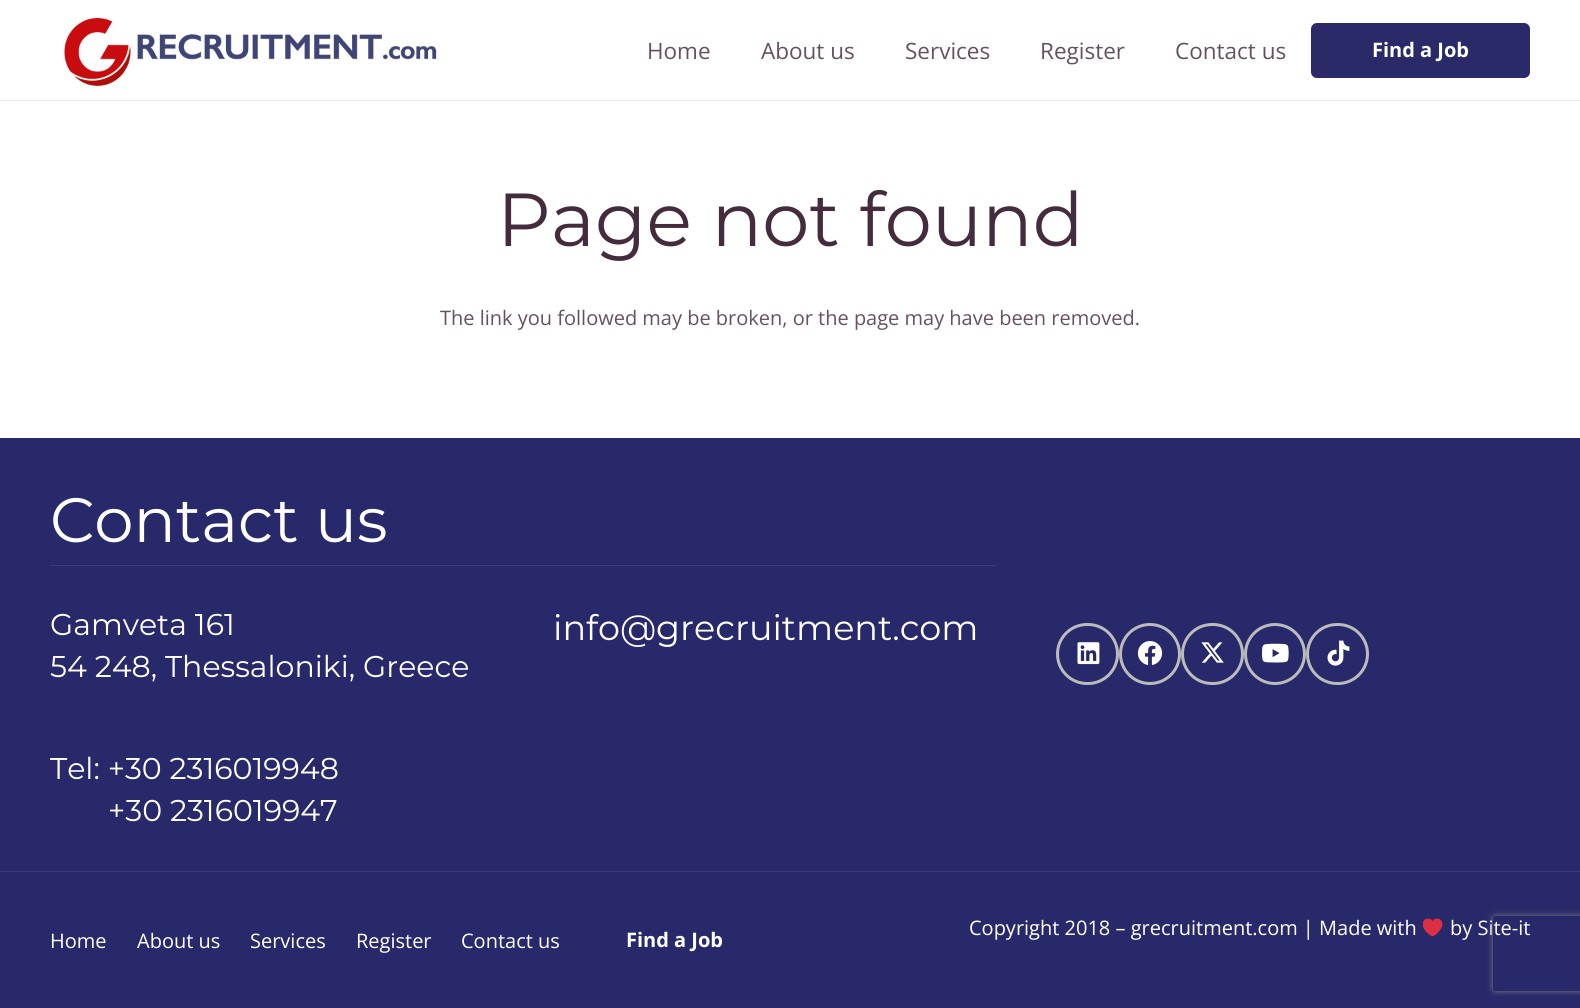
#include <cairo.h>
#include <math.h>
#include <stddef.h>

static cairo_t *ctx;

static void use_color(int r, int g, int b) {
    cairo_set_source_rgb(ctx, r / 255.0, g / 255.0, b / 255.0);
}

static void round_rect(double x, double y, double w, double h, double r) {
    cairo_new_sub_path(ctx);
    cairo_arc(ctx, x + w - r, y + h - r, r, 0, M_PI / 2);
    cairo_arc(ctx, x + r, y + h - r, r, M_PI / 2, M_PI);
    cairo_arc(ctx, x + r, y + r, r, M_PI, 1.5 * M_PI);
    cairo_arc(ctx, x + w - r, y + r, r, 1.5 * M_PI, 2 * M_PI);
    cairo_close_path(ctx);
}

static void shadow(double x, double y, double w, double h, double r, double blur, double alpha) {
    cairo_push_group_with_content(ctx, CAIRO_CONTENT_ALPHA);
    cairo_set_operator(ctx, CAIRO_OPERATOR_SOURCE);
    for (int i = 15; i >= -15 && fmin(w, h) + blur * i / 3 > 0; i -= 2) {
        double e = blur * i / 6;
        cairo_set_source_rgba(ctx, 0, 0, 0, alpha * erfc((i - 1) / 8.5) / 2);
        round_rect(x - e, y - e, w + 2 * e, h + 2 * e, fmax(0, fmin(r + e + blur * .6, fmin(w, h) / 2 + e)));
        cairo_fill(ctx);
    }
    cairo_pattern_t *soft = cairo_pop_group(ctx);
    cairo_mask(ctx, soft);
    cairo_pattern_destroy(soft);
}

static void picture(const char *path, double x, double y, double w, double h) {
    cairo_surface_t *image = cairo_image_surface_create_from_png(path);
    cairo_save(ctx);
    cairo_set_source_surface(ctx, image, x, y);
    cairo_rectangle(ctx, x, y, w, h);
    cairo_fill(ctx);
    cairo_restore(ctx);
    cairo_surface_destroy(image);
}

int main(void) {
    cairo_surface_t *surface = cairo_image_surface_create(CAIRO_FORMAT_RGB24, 1580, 1008);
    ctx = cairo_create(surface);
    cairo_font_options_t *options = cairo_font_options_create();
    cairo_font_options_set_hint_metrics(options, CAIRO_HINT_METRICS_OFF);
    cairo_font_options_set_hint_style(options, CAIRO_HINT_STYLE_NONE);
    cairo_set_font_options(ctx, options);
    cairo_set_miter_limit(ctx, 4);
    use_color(255, 255, 255);
    cairo_paint(ctx);
    use_color(235, 235, 235);
    cairo_rectangle(ctx, 0, 100, 1580, 1);
    cairo_fill(ctx);
    picture("img1.png", 64, 17, 373, 69);
    cairo_select_font_face(ctx, "Open Sans", CAIRO_FONT_SLANT_NORMAL, CAIRO_FONT_WEIGHT_NORMAL);
    cairo_set_font_size(ctx, 22.5);
    use_color(102, 82, 95);
    cairo_move_to(ctx, 647, 59);
    cairo_show_text(ctx, "Home");
    cairo_move_to(ctx, 761, 59);
    cairo_show_text(ctx, "About us");
    cairo_move_to(ctx, 905, 59);
    cairo_show_text(ctx, "Services");
    cairo_move_to(ctx, 1040, 59);
    cairo_show_text(ctx, "Register");
    cairo_move_to(ctx, 1175, 59);
    cairo_show_text(ctx, "Contact us");
    use_color(42, 42, 104);
    round_rect(1311, 23, 219, 55, 6);
    cairo_fill(ctx);
    cairo_select_font_face(ctx, "Open Sans", CAIRO_FONT_SLANT_NORMAL, CAIRO_FONT_WEIGHT_BOLD);
    cairo_set_font_size(ctx, 20);
    use_color(255, 255, 255);
    cairo_move_to(ctx, 1372, 57);
    cairo_show_text(ctx, "Find a Job");
    cairo_select_font_face(ctx, "Montserrat", CAIRO_FONT_SLANT_NORMAL, CAIRO_FONT_WEIGHT_NORMAL);
    cairo_set_font_size(ctx, 75);
    use_color(68, 43, 61);
    cairo_move_to(ctx, 497, 246);
    cairo_show_text(ctx, "Page not found");
    cairo_select_font_face(ctx, "Open Sans", CAIRO_FONT_SLANT_NORMAL, CAIRO_FONT_WEIGHT_NORMAL);
    cairo_set_font_size(ctx, 20);
    use_color(102, 82, 95);
    cairo_move_to(ctx, 440, 325);
    cairo_show_text(ctx, "The link you followed may be broken, or the page may have been removed.");
    use_color(40, 41, 106);
    cairo_rectangle(ctx, 0, 438, 1580, 433);
    cairo_fill(ctx);
    cairo_select_font_face(ctx, "Montserrat", CAIRO_FONT_SLANT_NORMAL, CAIRO_FONT_WEIGHT_NORMAL);
    cairo_set_font_size(ctx, 62.5);
    use_color(255, 255, 255);
    cairo_move_to(ctx, 50, 542);
    cairo_show_text(ctx, "Contact us");
    use_color(56, 58, 132);
    cairo_rectangle(ctx, 50, 565, 946, 1);
    cairo_fill(ctx);
    cairo_set_font_size(ctx, 30);
    use_color(255, 255, 255);
    cairo_move_to(ctx, 50, 635);
    cairo_show_text(ctx, "Gamveta 161");
    cairo_move_to(ctx, 50, 677);
    cairo_show_text(ctx, "54 248, Thessaloniki, Greece");
    cairo_move_to(ctx, 50, 779);
    cairo_show_text(ctx, "Tel: +30 2316019948");
    cairo_move_to(ctx, 108, 821);
    cairo_show_text(ctx, "+30 2316019947");
    cairo_set_font_size(ctx, 35);
    cairo_move_to(ctx, 553, 640);
    cairo_show_text(ctx, "info@grecruitment.com");
    round_rect(1057.5, 624.5, 60, 59, 29.5);
    use_color(187, 187, 187);
    cairo_set_line_width(ctx, 3);
    cairo_stroke(ctx);
    picture("img2.png", 1077, 642, 23, 23);
    cairo_arc(ctx, 1150, 654, 29.5, 0, 2 * M_PI);
    cairo_stroke(ctx);
    picture("img3.png", 1137, 641, 26, 24);
    round_rect(1182.5, 624.5, 60, 59, 29.5);
    cairo_stroke(ctx);
    picture("img4.png", 1201, 642, 23, 21);
    cairo_arc(ctx, 1275, 654, 29.5, 0, 2 * M_PI);
    cairo_stroke(ctx);
    picture("img5.png", 1262, 643, 27, 20);
    round_rect(1307.5, 624.5, 60, 59, 29.5);
    cairo_stroke(ctx);
    picture("img6.png", 1327, 640, 23, 26);
    use_color(40, 41, 106);
    cairo_rectangle(ctx, 0, 872, 1580, 136);
    cairo_fill(ctx);
    use_color(56, 58, 132);
    cairo_rectangle(ctx, 0, 871, 1580, 1);
    cairo_fill(ctx);
    cairo_select_font_face(ctx, "Open Sans", CAIRO_FONT_SLANT_NORMAL, CAIRO_FONT_WEIGHT_NORMAL);
    cairo_set_font_size(ctx, 20);
    use_color(255, 255, 255);
    cairo_move_to(ctx, 50, 948);
    cairo_show_text(ctx, "Home");
    cairo_move_to(ctx, 137, 948);
    cairo_show_text(ctx, "About us");
    cairo_move_to(ctx, 250, 948);
    cairo_show_text(ctx, "Services");
    cairo_move_to(ctx, 356, 948);
    cairo_show_text(ctx, "Register");
    cairo_move_to(ctx, 461, 948);
    cairo_show_text(ctx, "Contact us");
    cairo_select_font_face(ctx, "Open Sans", CAIRO_FONT_SLANT_NORMAL, CAIRO_FONT_WEIGHT_BOLD);
    cairo_move_to(ctx, 626, 947);
    cairo_show_text(ctx, "Find a Job");
    cairo_select_font_face(ctx, "Open Sans", CAIRO_FONT_SLANT_NORMAL, CAIRO_FONT_WEIGHT_NORMAL);
    cairo_move_to(ctx, 969, 935);
    cairo_show_text(ctx, "Copyright 2018 – grecruitment.com | Made with");
    picture("img7.png", 1423, 918, 20, 19);
    cairo_move_to(ctx, 1450, 935);
    cairo_show_text(ctx, "by Site-it");
    cairo_save(ctx);
    cairo_set_fill_rule(ctx, CAIRO_FILL_RULE_EVEN_ODD);
    cairo_new_path(ctx);
    cairo_move_to(ctx, 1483, 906);
    cairo_line_to(ctx, 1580, 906);
    cairo_line_to(ctx, 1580, 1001);
    cairo_line_to(ctx, 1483, 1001);
    cairo_close_path(ctx);
    cairo_move_to(ctx, 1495.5, 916);
    cairo_line_to(ctx, 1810.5, 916);
    cairo_curve_to(ctx, 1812, 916, 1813, 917, 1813, 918.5);
    cairo_line_to(ctx, 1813, 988.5);
    cairo_curve_to(ctx, 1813, 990, 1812, 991, 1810.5, 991);
    cairo_line_to(ctx, 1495.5, 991);
    cairo_curve_to(ctx, 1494, 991, 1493, 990, 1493, 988.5);
    cairo_line_to(ctx, 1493, 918.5);
    cairo_curve_to(ctx, 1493, 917, 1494, 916, 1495.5, 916);
    cairo_close_path(ctx);
    cairo_clip(ctx);
    use_color(128, 128, 128);
    shadow(1493, 916, 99, 75, 2.5, 3, 1);
    cairo_restore(ctx);
    cairo_surface_write_to_png(surface, "result.png");
    cairo_font_options_destroy(options);
    cairo_destroy(ctx);
    cairo_surface_destroy(surface);
    return 0;
}
